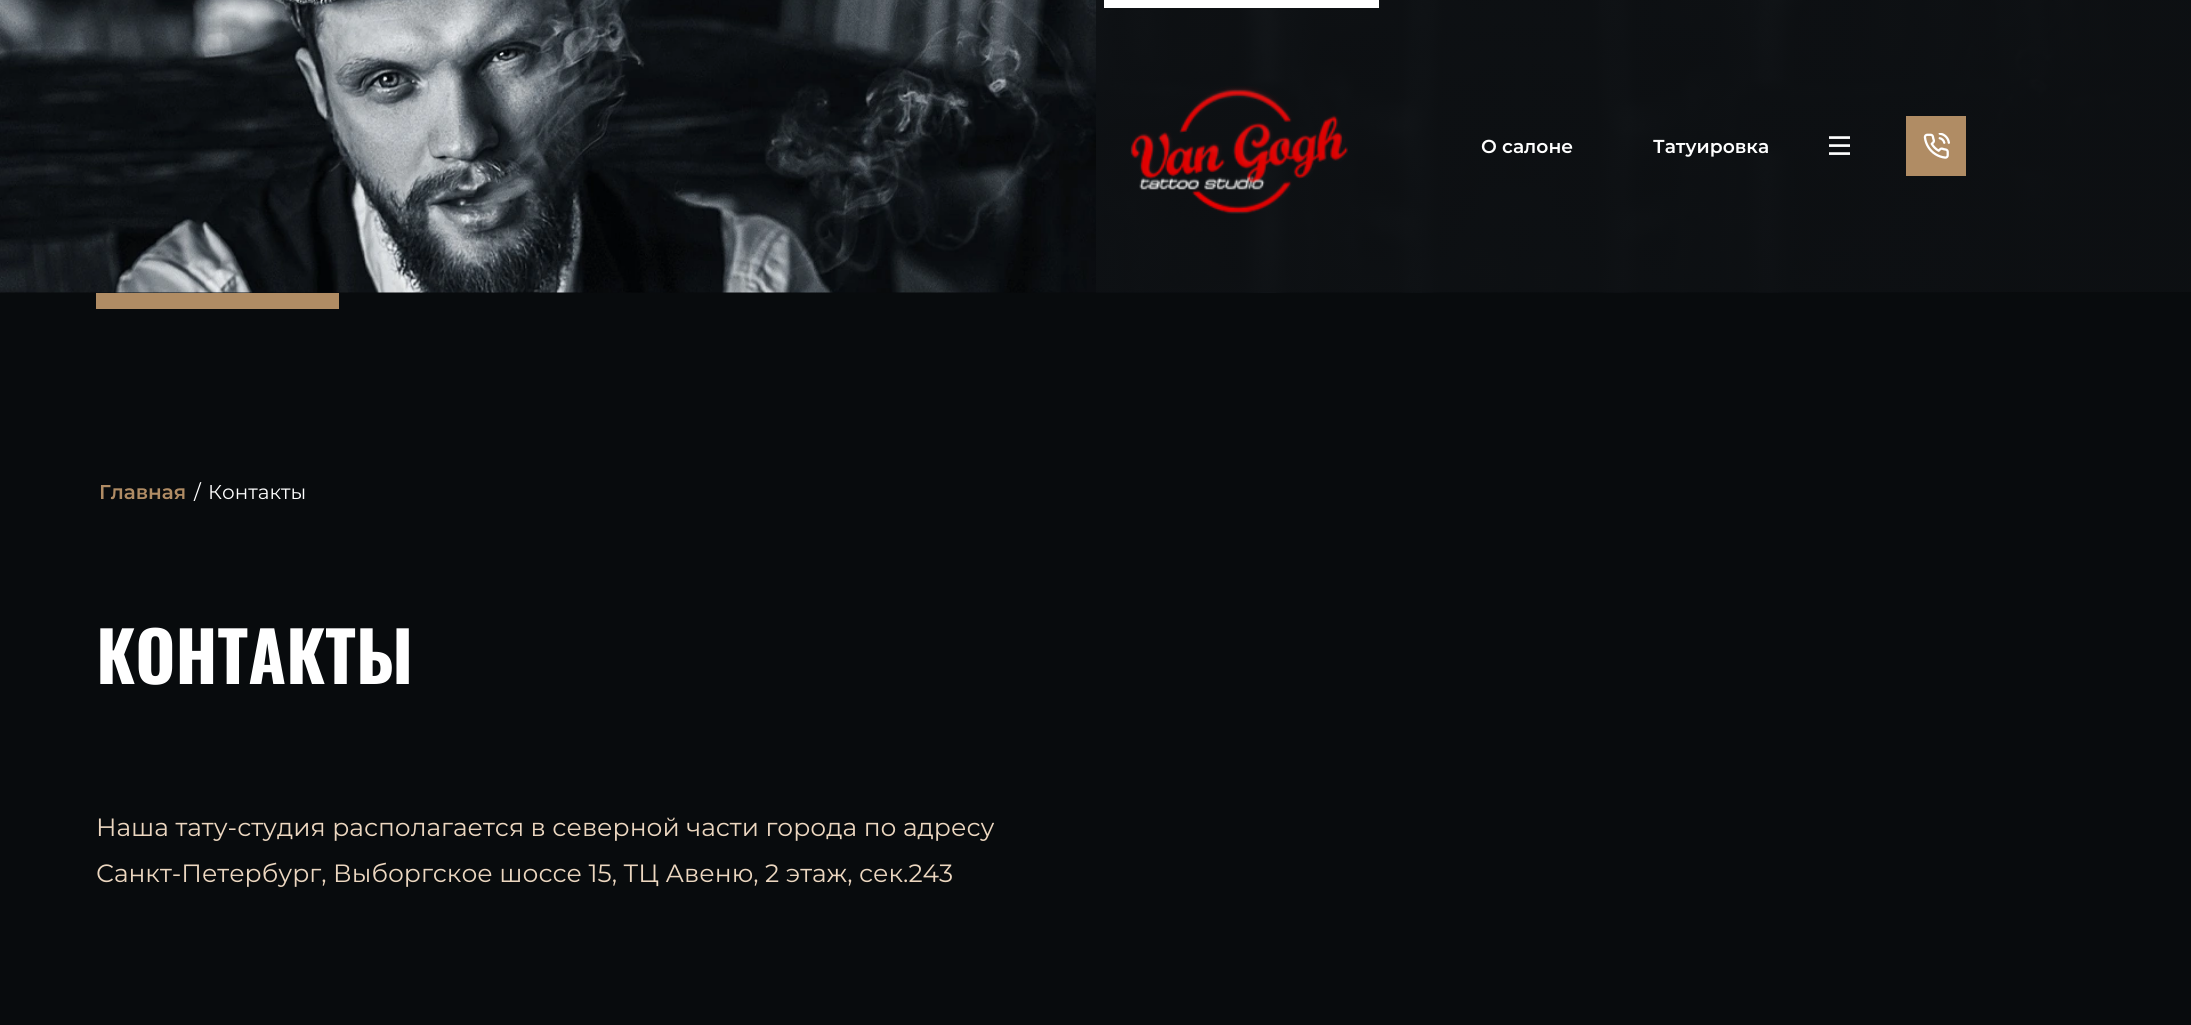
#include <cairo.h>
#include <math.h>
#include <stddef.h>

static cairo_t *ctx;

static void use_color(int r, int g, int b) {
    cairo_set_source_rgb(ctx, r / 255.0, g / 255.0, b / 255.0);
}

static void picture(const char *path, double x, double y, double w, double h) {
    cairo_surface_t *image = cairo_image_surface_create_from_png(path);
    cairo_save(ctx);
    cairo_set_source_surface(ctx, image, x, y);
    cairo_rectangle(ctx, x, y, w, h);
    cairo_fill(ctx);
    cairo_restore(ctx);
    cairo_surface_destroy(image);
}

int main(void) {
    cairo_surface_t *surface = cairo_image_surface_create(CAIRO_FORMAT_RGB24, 2191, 1025);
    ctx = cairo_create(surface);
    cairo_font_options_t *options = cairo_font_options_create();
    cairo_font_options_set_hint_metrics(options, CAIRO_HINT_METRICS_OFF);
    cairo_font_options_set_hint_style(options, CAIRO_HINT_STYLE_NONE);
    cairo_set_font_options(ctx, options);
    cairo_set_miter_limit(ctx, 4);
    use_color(8, 11, 13);
    cairo_paint(ctx);
    picture("img1.png", 0, 0, 2191, 293);
    use_color(255, 255, 255);
    cairo_rectangle(ctx, 1104, 0, 275, 8);
    cairo_fill(ctx);
    picture("img2.png", 1130, 86, 218, 128);
    cairo_select_font_face(ctx, "Montserrat SemiBold", CAIRO_FONT_SLANT_NORMAL, CAIRO_FONT_WEIGHT_NORMAL);
    cairo_set_font_size(ctx, 18.75);
    cairo_move_to(ctx, 1481, 153);
    cairo_show_text(ctx, "О салоне");
    cairo_move_to(ctx, 1653, 153);
    cairo_show_text(ctx, "Татуировка");
    picture("img3.png", 1829, 136, 21, 19);
    use_color(176, 140, 100);
    cairo_rectangle(ctx, 1906, 116, 60, 60);
    cairo_fill(ctx);
    picture("img4.png", 1923, 133, 27, 26);
    cairo_rectangle(ctx, 96, 293, 243, 16);
    cairo_fill(ctx);
    cairo_set_font_size(ctx, 20);
    cairo_move_to(ctx, 99, 499);
    cairo_show_text(ctx, "Главная");
    cairo_select_font_face(ctx, "Montserrat", CAIRO_FONT_SLANT_NORMAL, CAIRO_FONT_WEIGHT_NORMAL);
    use_color(255, 255, 255);
    cairo_move_to(ctx, 194, 499);
    cairo_show_text(ctx, "/");
    cairo_move_to(ctx, 208, 499);
    cairo_show_text(ctx, "Контакты");
    cairo_select_font_face(ctx, "Oswald", CAIRO_FONT_SLANT_NORMAL, CAIRO_FONT_WEIGHT_BOLD);
    cairo_set_font_size(ctx, 68.75);
    cairo_move_to(ctx, 96, 684);
    cairo_show_text(ctx, "КОНТАКТЫ");
    cairo_select_font_face(ctx, "Montserrat", CAIRO_FONT_SLANT_NORMAL, CAIRO_FONT_WEIGHT_NORMAL);
    cairo_set_font_size(ctx, 25);
    use_color(236, 215, 192);
    cairo_move_to(ctx, 96, 836);
    cairo_show_text(ctx, "Наша тату-студия располагается в северной части города по адресу");
    cairo_move_to(ctx, 96, 882);
    cairo_show_text(ctx, "Санкт-Петербург, Выборгское шоссе 15, ТЦ Авеню, 2 этаж, сек.243");
    cairo_surface_write_to_png(surface, "result.png");
    cairo_font_options_destroy(options);
    cairo_destroy(ctx);
    cairo_surface_destroy(surface);
    return 0;
}
